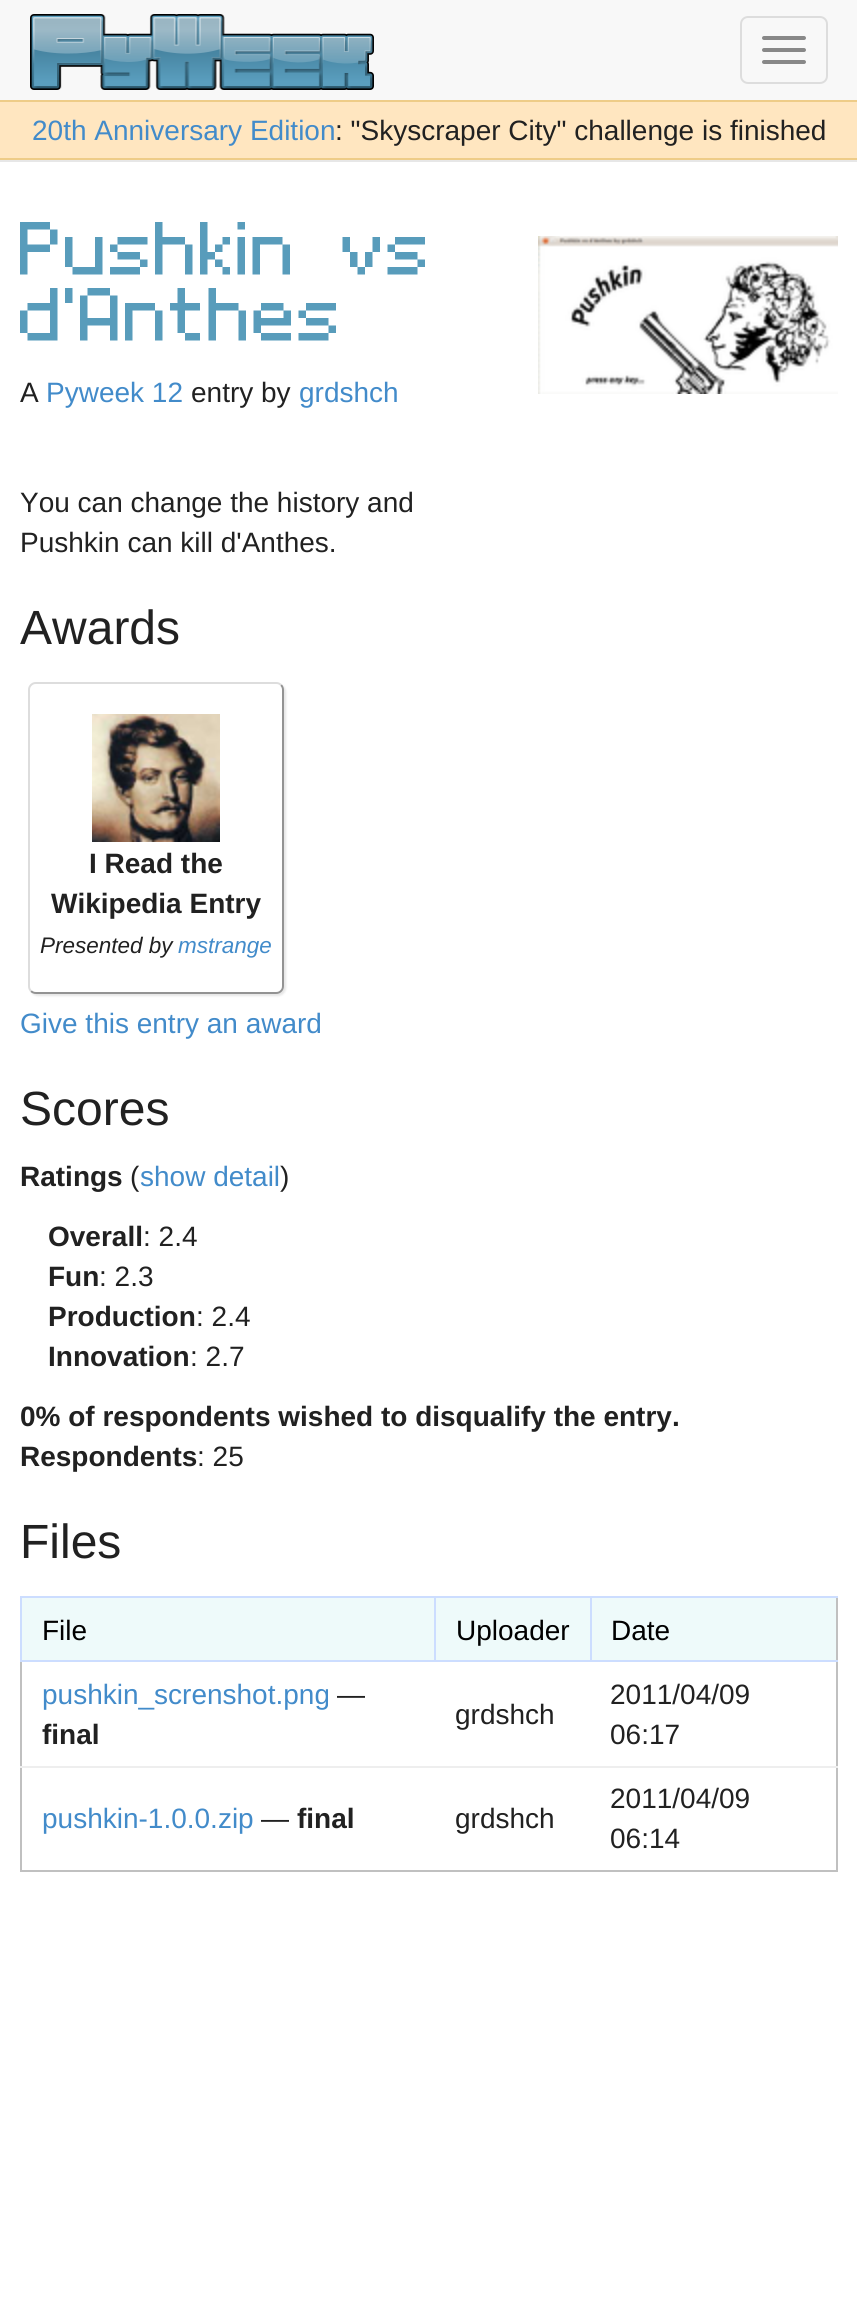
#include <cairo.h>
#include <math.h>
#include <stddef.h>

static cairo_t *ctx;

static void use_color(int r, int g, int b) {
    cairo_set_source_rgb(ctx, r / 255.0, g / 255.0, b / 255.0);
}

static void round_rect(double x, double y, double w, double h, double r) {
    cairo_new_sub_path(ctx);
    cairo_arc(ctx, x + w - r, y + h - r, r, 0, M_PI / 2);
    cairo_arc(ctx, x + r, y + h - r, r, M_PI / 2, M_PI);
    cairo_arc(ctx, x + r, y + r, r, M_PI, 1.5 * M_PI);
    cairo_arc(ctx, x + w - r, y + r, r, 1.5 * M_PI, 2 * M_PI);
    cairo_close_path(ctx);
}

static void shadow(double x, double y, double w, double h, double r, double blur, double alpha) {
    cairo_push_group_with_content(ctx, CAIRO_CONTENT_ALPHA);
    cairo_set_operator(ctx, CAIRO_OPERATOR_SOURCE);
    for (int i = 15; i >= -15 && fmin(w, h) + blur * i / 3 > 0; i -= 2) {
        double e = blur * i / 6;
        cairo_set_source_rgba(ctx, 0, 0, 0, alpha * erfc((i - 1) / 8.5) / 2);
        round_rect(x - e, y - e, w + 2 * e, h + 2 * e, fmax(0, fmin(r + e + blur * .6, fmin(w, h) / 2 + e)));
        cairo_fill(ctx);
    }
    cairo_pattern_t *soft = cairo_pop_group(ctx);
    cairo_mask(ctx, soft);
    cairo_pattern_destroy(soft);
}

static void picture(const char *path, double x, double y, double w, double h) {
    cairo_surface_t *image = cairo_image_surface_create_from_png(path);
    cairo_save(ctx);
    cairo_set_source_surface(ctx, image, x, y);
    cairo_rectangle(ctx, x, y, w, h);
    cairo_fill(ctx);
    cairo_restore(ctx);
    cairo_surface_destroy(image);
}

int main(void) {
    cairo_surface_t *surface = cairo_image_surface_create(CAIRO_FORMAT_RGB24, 857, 2310);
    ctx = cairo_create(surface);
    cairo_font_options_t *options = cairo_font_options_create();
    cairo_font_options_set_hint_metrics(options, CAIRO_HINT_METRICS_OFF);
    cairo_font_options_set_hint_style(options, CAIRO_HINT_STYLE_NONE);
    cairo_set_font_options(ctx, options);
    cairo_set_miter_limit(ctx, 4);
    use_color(255, 255, 255);
    cairo_paint(ctx);
    use_color(248, 248, 248);
    cairo_rectangle(ctx, 0, 0, 857, 100);
    cairo_fill(ctx);
    use_color(231, 231, 231);
    cairo_rectangle(ctx, 0, 160, 857, 2);
    cairo_fill(ctx);
    picture("img1.png", 30, 14, 344, 76);
    round_rect(741, 17, 86, 66, 7);
    use_color(221, 221, 221);
    cairo_stroke(ctx);
    use_color(136, 136, 136);
    round_rect(762, 36, 44, 4, 2);
    cairo_fill(ctx);
    round_rect(762, 48, 44, 4, 2);
    cairo_fill(ctx);
    round_rect(762, 60, 44, 4, 2);
    cairo_fill(ctx);
    use_color(255, 230, 192);
    cairo_rectangle(ctx, 0, 102, 857, 56);
    cairo_fill(ctx);
    use_color(238, 204, 136);
    cairo_rectangle(ctx, 0, 100, 857, 2);
    cairo_fill(ctx);
    cairo_rectangle(ctx, 0, 158, 857, 2);
    cairo_fill(ctx);
    cairo_select_font_face(ctx, "Liberation Sans", CAIRO_FONT_SLANT_NORMAL, CAIRO_FONT_WEIGHT_NORMAL);
    cairo_set_font_size(ctx, 28);
    use_color(66, 139, 202);
    cairo_move_to(ctx, 32, 140);
    cairo_show_text(ctx, "20th Anniversary Edition");
    use_color(33, 33, 33);
    cairo_move_to(ctx, 335, 140);
    cairo_show_text(ctx, ": \"Skyscraper City\" challenge is finished");
    cairo_select_font_face(ctx, "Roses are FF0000", CAIRO_FONT_SLANT_NORMAL, CAIRO_FONT_WEIGHT_NORMAL);
    cairo_set_font_size(ctx, 60);
    use_color(88, 156, 187);
    cairo_move_to(ctx, 20, 282);
    cairo_show_text(ctx, "Pushkin vs");
    cairo_move_to(ctx, 20, 348);
    cairo_show_text(ctx, "d'Anthes");
    picture("img2.png", 538, 236, 300, 158);
    cairo_select_font_face(ctx, "Liberation Sans", CAIRO_FONT_SLANT_NORMAL, CAIRO_FONT_WEIGHT_NORMAL);
    cairo_set_font_size(ctx, 28);
    use_color(33, 33, 33);
    cairo_move_to(ctx, 20, 402);
    cairo_show_text(ctx, "A");
    use_color(66, 139, 202);
    cairo_move_to(ctx, 46, 402);
    cairo_show_text(ctx, "Pyweek 12");
    use_color(33, 33, 33);
    cairo_move_to(ctx, 191, 402);
    cairo_show_text(ctx, "entry by");
    use_color(66, 139, 202);
    cairo_move_to(ctx, 299, 402);
    cairo_show_text(ctx, "grdshch");
    use_color(33, 33, 33);
    cairo_move_to(ctx, 20, 512);
    cairo_show_text(ctx, "You can change the history and");
    cairo_move_to(ctx, 20, 552);
    cairo_show_text(ctx, "Pushkin can kill d'Anthes.");
    cairo_set_font_size(ctx, 48);
    cairo_move_to(ctx, 20, 644);
    cairo_show_text(ctx, "Awards");
    cairo_save(ctx);
    cairo_set_fill_rule(ctx, CAIRO_FILL_RULE_EVEN_ODD);
    cairo_new_path(ctx);
    cairo_move_to(ctx, 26, 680);
    cairo_line_to(ctx, 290, 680);
    cairo_line_to(ctx, 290, 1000);
    cairo_line_to(ctx, 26, 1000);
    cairo_close_path(ctx);
    cairo_move_to(ctx, 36, 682);
    cairo_line_to(ctx, 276, 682);
    cairo_curve_to(ctx, 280.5, 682, 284, 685.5, 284, 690);
    cairo_line_to(ctx, 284, 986);
    cairo_curve_to(ctx, 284, 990.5, 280.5, 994, 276, 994);
    cairo_line_to(ctx, 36, 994);
    cairo_curve_to(ctx, 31.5, 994, 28, 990.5, 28, 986);
    cairo_line_to(ctx, 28, 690);
    cairo_curve_to(ctx, 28, 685.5, 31.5, 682, 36, 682);
    cairo_close_path(ctx);
    cairo_clip(ctx);
    use_color(0, 0, 0);
    shadow(30, 684, 256, 312, 8, 1, 0.1);
    cairo_restore(ctx);
    cairo_new_path(ctx);
    cairo_move_to(ctx, 281, 685);
    cairo_curve_to(ctx, 282.5, 686.5, 283, 688, 283, 690);
    cairo_line_to(ctx, 283, 986);
    cairo_curve_to(ctx, 283, 988, 282.5, 989.5, 281, 991);
    cairo_curve_to(ctx, 279.5, 992.5, 278, 993, 276, 993);
    cairo_line_to(ctx, 36, 993);
    cairo_curve_to(ctx, 34, 993, 32.5, 992.5, 31, 991);
    use_color(147, 147, 147);
    cairo_stroke(ctx);
    cairo_new_path(ctx);
    cairo_move_to(ctx, 31, 991);
    cairo_curve_to(ctx, 29.5, 989.5, 29, 988, 29, 986);
    cairo_line_to(ctx, 29, 690);
    cairo_curve_to(ctx, 29, 688, 29.5, 686.5, 31, 685);
    cairo_curve_to(ctx, 32.5, 683.5, 34, 683, 36, 683);
    cairo_line_to(ctx, 276, 683);
    cairo_curve_to(ctx, 278, 683, 279.5, 683.5, 281, 685);
    use_color(221, 221, 221);
    cairo_stroke(ctx);
    picture("img3.png", 92, 714, 128, 128);
    cairo_select_font_face(ctx, "Liberation Sans", CAIRO_FONT_SLANT_NORMAL, CAIRO_FONT_WEIGHT_BOLD);
    cairo_set_font_size(ctx, 28);
    use_color(33, 33, 33);
    cairo_move_to(ctx, 89, 873);
    cairo_show_text(ctx, "I Read the");
    cairo_move_to(ctx, 51, 913);
    cairo_show_text(ctx, "Wikipedia Entry");
    cairo_select_font_face(ctx, "Liberation Sans", CAIRO_FONT_SLANT_ITALIC, CAIRO_FONT_WEIGHT_NORMAL);
    cairo_set_font_size(ctx, 22.5);
    cairo_move_to(ctx, 40, 953);
    cairo_show_text(ctx, "Presented by");
    use_color(66, 139, 202);
    cairo_move_to(ctx, 178, 953);
    cairo_show_text(ctx, "mstrange");
    cairo_select_font_face(ctx, "Liberation Sans", CAIRO_FONT_SLANT_NORMAL, CAIRO_FONT_WEIGHT_NORMAL);
    cairo_set_font_size(ctx, 28);
    cairo_move_to(ctx, 20, 1033);
    cairo_show_text(ctx, "Give this entry an award");
    cairo_set_font_size(ctx, 48);
    use_color(33, 33, 33);
    cairo_move_to(ctx, 20, 1125);
    cairo_show_text(ctx, "Scores");
    cairo_select_font_face(ctx, "Liberation Sans", CAIRO_FONT_SLANT_NORMAL, CAIRO_FONT_WEIGHT_BOLD);
    cairo_set_font_size(ctx, 28);
    cairo_move_to(ctx, 20, 1186);
    cairo_show_text(ctx, "Ratings");
    cairo_select_font_face(ctx, "Liberation Sans", CAIRO_FONT_SLANT_NORMAL, CAIRO_FONT_WEIGHT_NORMAL);
    cairo_move_to(ctx, 130, 1186);
    cairo_show_text(ctx, "(");
    use_color(66, 139, 202);
    cairo_move_to(ctx, 140, 1186);
    cairo_show_text(ctx, "show detail");
    use_color(33, 33, 33);
    cairo_move_to(ctx, 280, 1186);
    cairo_show_text(ctx, ")");
    cairo_select_font_face(ctx, "Liberation Sans", CAIRO_FONT_SLANT_NORMAL, CAIRO_FONT_WEIGHT_BOLD);
    cairo_move_to(ctx, 48, 1246);
    cairo_show_text(ctx, "Overall");
    cairo_select_font_face(ctx, "Liberation Sans", CAIRO_FONT_SLANT_NORMAL, CAIRO_FONT_WEIGHT_NORMAL);
    cairo_move_to(ctx, 143, 1246);
    cairo_show_text(ctx, ": 2.4");
    cairo_select_font_face(ctx, "Liberation Sans", CAIRO_FONT_SLANT_NORMAL, CAIRO_FONT_WEIGHT_BOLD);
    cairo_move_to(ctx, 48, 1286);
    cairo_show_text(ctx, "Fun");
    cairo_select_font_face(ctx, "Liberation Sans", CAIRO_FONT_SLANT_NORMAL, CAIRO_FONT_WEIGHT_NORMAL);
    cairo_move_to(ctx, 99, 1286);
    cairo_show_text(ctx, ": 2.3");
    cairo_select_font_face(ctx, "Liberation Sans", CAIRO_FONT_SLANT_NORMAL, CAIRO_FONT_WEIGHT_BOLD);
    cairo_move_to(ctx, 48, 1326);
    cairo_show_text(ctx, "Production");
    cairo_select_font_face(ctx, "Liberation Sans", CAIRO_FONT_SLANT_NORMAL, CAIRO_FONT_WEIGHT_NORMAL);
    cairo_move_to(ctx, 196, 1326);
    cairo_show_text(ctx, ": 2.4");
    cairo_select_font_face(ctx, "Liberation Sans", CAIRO_FONT_SLANT_NORMAL, CAIRO_FONT_WEIGHT_BOLD);
    cairo_move_to(ctx, 48, 1366);
    cairo_show_text(ctx, "Innovation");
    cairo_select_font_face(ctx, "Liberation Sans", CAIRO_FONT_SLANT_NORMAL, CAIRO_FONT_WEIGHT_NORMAL);
    cairo_move_to(ctx, 190, 1366);
    cairo_show_text(ctx, ": 2.7");
    cairo_select_font_face(ctx, "Liberation Sans", CAIRO_FONT_SLANT_NORMAL, CAIRO_FONT_WEIGHT_BOLD);
    cairo_move_to(ctx, 20, 1426);
    cairo_show_text(ctx, "0% of respondents wished to disqualify the entry.");
    cairo_move_to(ctx, 20, 1466);
    cairo_show_text(ctx, "Respondents");
    cairo_select_font_face(ctx, "Liberation Sans", CAIRO_FONT_SLANT_NORMAL, CAIRO_FONT_WEIGHT_NORMAL);
    cairo_move_to(ctx, 197, 1466);
    cairo_show_text(ctx, ": 25");
    cairo_set_font_size(ctx, 48);
    cairo_move_to(ctx, 20, 1558);
    cairo_show_text(ctx, "Files");
    use_color(192, 192, 192);
    cairo_rectangle(ctx, 836, 1596, 2, 276);
    cairo_fill(ctx);
    cairo_rectangle(ctx, 20, 1870, 818, 2);
    cairo_fill(ctx);
    cairo_rectangle(ctx, 20, 1662, 2, 210);
    cairo_fill(ctx);
    use_color(238, 250, 250);
    cairo_rectangle(ctx, 22, 1598, 412, 62);
    cairo_fill(ctx);
    use_color(204, 221, 255);
    cairo_rectangle(ctx, 590, 1596, 248, 2);
    cairo_fill(ctx);
    cairo_rectangle(ctx, 590, 1660, 248, 2);
    cairo_fill(ctx);
    cairo_rectangle(ctx, 590, 1596, 2, 66);
    cairo_fill(ctx);
    cairo_rectangle(ctx, 434, 1596, 158, 2);
    cairo_fill(ctx);
    cairo_rectangle(ctx, 434, 1660, 158, 2);
    cairo_fill(ctx);
    cairo_rectangle(ctx, 434, 1596, 2, 66);
    cairo_fill(ctx);
    cairo_rectangle(ctx, 20, 1596, 416, 2);
    cairo_fill(ctx);
    cairo_rectangle(ctx, 20, 1660, 416, 2);
    cairo_fill(ctx);
    cairo_rectangle(ctx, 20, 1596, 2, 66);
    cairo_fill(ctx);
    cairo_set_font_size(ctx, 28);
    use_color(0, 0, 0);
    cairo_move_to(ctx, 42, 1640);
    cairo_show_text(ctx, "File");
    use_color(238, 250, 250);
    cairo_rectangle(ctx, 436, 1598, 154, 62);
    cairo_fill(ctx);
    use_color(0, 0, 0);
    cairo_move_to(ctx, 456, 1640);
    cairo_show_text(ctx, "Uploader");
    use_color(238, 250, 250);
    cairo_rectangle(ctx, 592, 1598, 244, 62);
    cairo_fill(ctx);
    use_color(0, 0, 0);
    cairo_move_to(ctx, 611, 1640);
    cairo_show_text(ctx, "Date");
    use_color(66, 139, 202);
    cairo_move_to(ctx, 42, 1704);
    cairo_show_text(ctx, "pushkin_screnshot.png");
    use_color(33, 33, 33);
    cairo_move_to(ctx, 337, 1704);
    cairo_show_text(ctx, "—");
    cairo_select_font_face(ctx, "Liberation Sans", CAIRO_FONT_SLANT_NORMAL, CAIRO_FONT_WEIGHT_BOLD);
    cairo_move_to(ctx, 42, 1744);
    cairo_show_text(ctx, "final");
    cairo_select_font_face(ctx, "Liberation Sans", CAIRO_FONT_SLANT_NORMAL, CAIRO_FONT_WEIGHT_NORMAL);
    cairo_move_to(ctx, 455, 1724);
    cairo_show_text(ctx, "grdshch");
    use_color(238, 238, 238);
    cairo_rectangle(ctx, 20, 1766, 818, 2);
    cairo_fill(ctx);
    use_color(33, 33, 33);
    cairo_move_to(ctx, 610, 1704);
    cairo_show_text(ctx, "2011/04/09");
    cairo_move_to(ctx, 610, 1744);
    cairo_show_text(ctx, "06:17");
    use_color(66, 139, 202);
    cairo_move_to(ctx, 42, 1828);
    cairo_show_text(ctx, "pushkin-1.0.0.zip");
    use_color(33, 33, 33);
    cairo_move_to(ctx, 261, 1828);
    cairo_show_text(ctx, "—");
    cairo_select_font_face(ctx, "Liberation Sans", CAIRO_FONT_SLANT_NORMAL, CAIRO_FONT_WEIGHT_BOLD);
    cairo_move_to(ctx, 297, 1828);
    cairo_show_text(ctx, "final");
    cairo_select_font_face(ctx, "Liberation Sans", CAIRO_FONT_SLANT_NORMAL, CAIRO_FONT_WEIGHT_NORMAL);
    cairo_move_to(ctx, 455, 1828);
    cairo_show_text(ctx, "grdshch");
    cairo_move_to(ctx, 610, 1808);
    cairo_show_text(ctx, "2011/04/09");
    cairo_move_to(ctx, 610, 1848);
    cairo_show_text(ctx, "06:14");
    cairo_surface_write_to_png(surface, "result.png");
    cairo_font_options_destroy(options);
    cairo_destroy(ctx);
    cairo_surface_destroy(surface);
    return 0;
}
